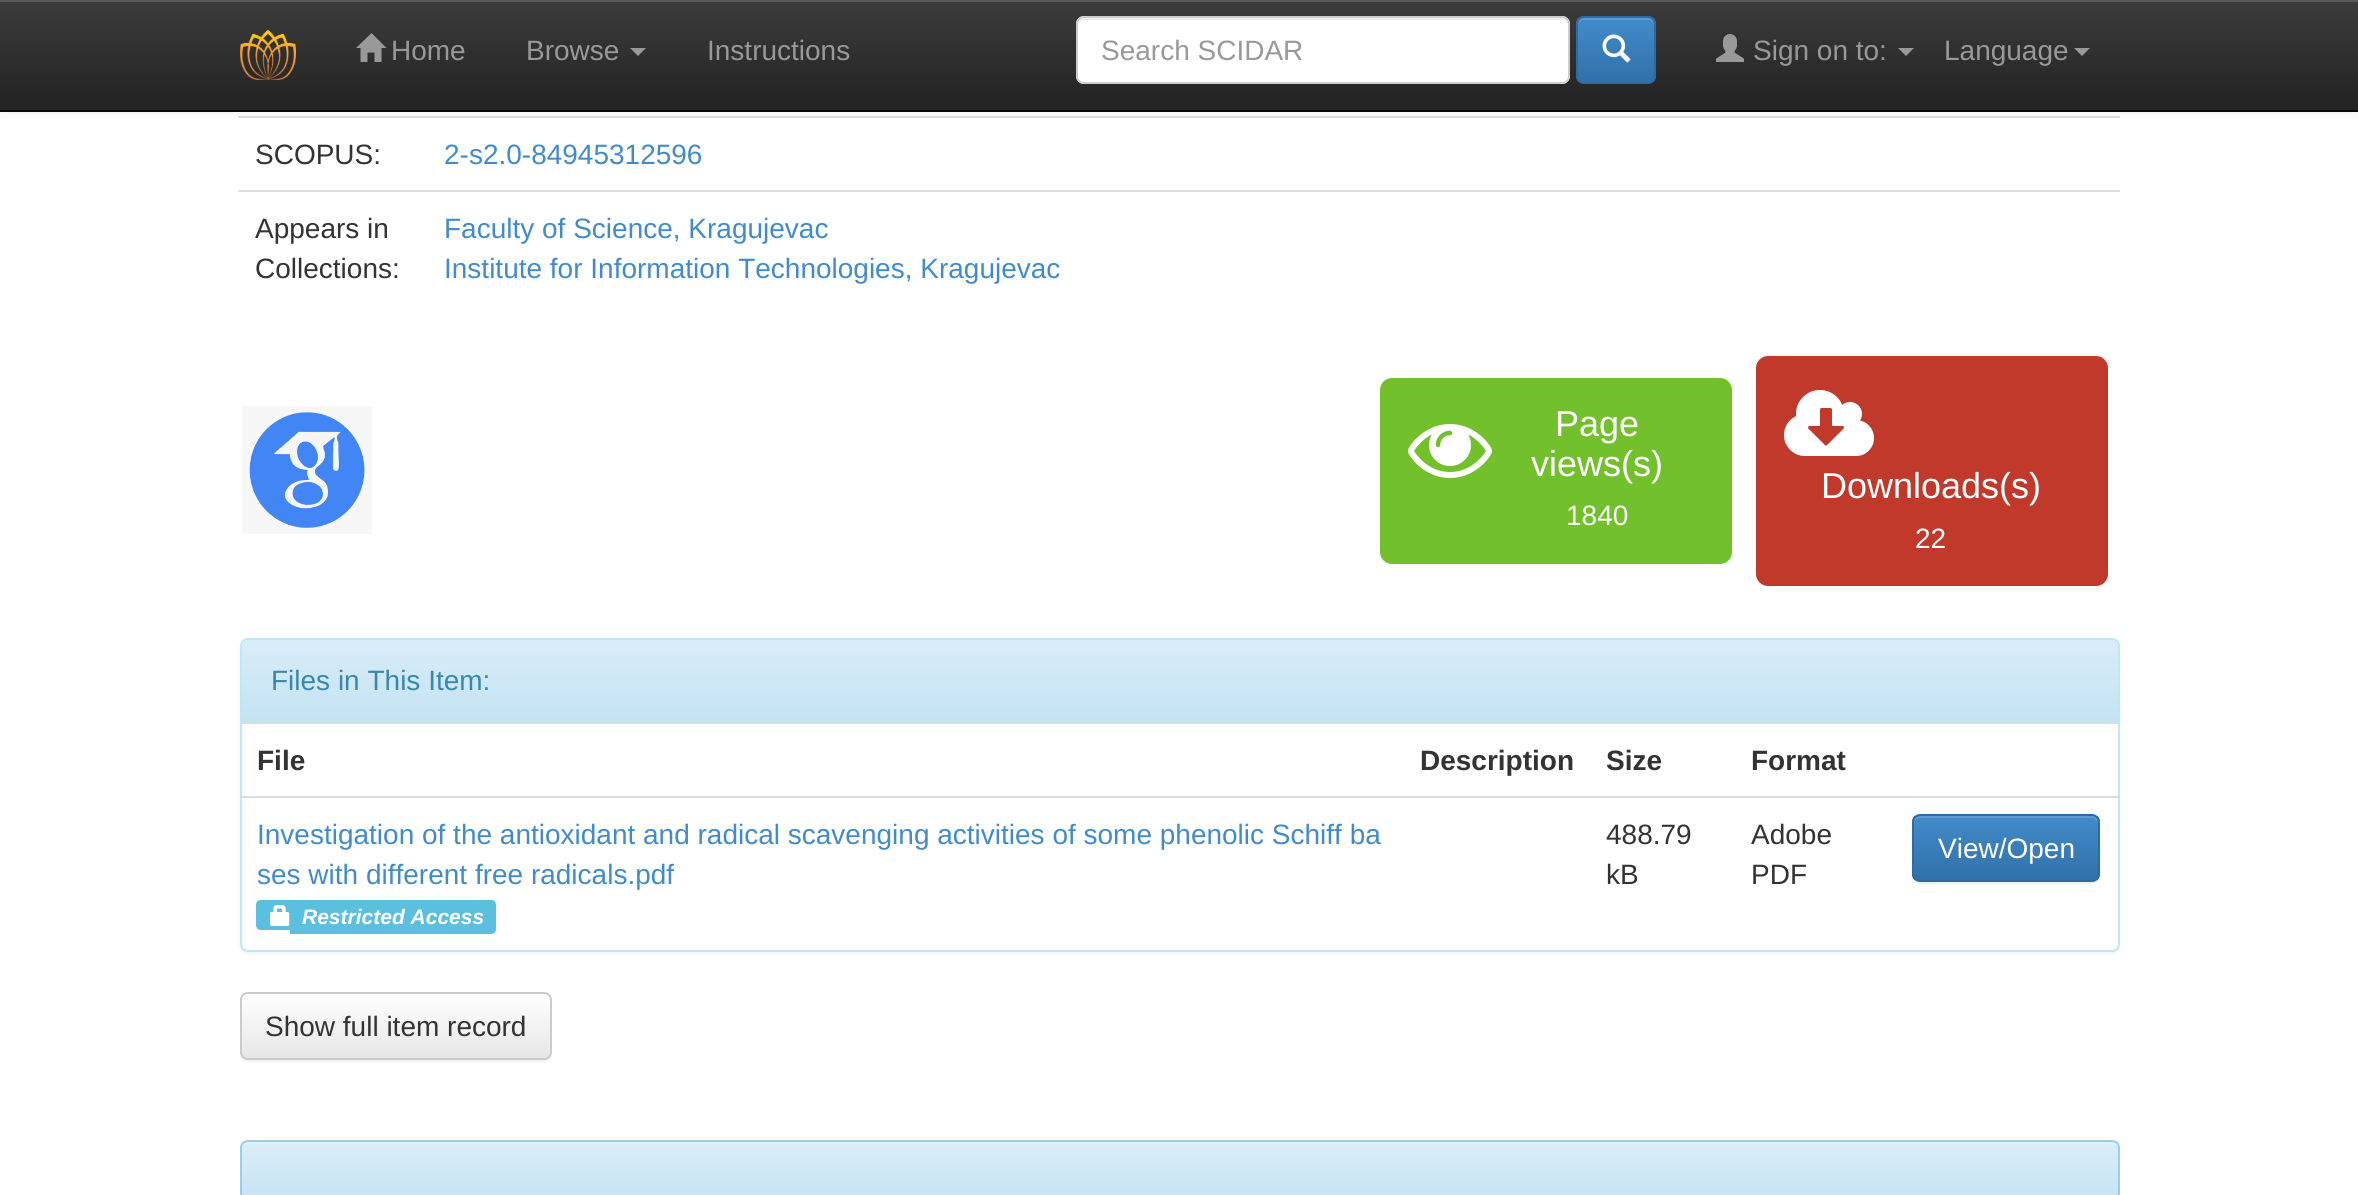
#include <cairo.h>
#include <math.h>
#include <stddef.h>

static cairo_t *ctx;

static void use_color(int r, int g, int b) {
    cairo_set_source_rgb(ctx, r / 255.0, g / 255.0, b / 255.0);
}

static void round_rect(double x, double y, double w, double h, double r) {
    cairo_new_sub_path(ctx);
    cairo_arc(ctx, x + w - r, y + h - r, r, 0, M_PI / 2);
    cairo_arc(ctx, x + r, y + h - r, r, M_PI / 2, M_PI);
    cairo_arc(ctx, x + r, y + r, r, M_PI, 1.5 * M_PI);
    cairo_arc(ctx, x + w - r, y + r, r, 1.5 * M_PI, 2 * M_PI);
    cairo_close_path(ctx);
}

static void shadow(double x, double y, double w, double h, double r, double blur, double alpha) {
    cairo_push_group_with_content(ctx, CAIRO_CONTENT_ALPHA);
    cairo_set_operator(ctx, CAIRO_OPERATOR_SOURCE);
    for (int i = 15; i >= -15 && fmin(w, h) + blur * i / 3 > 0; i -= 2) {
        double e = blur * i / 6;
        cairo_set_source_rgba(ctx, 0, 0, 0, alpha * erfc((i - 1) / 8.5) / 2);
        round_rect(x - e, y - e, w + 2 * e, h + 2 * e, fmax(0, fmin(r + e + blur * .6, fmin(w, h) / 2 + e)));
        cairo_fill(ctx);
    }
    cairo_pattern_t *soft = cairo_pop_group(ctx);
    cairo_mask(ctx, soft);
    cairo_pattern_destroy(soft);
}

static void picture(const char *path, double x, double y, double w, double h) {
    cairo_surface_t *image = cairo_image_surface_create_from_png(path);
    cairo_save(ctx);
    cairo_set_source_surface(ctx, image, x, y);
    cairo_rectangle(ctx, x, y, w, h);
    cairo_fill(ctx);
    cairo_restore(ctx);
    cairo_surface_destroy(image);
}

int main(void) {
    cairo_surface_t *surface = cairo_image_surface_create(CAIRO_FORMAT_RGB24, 2358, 1195);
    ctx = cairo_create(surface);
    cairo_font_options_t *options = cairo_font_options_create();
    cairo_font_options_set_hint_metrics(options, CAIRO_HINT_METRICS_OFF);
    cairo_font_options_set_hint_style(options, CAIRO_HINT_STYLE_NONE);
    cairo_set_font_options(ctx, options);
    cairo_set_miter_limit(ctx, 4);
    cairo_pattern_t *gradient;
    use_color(255, 255, 255);
    cairo_paint(ctx);
    use_color(221, 221, 221);
    cairo_rectangle(ctx, 238, 116, 1882, 2);
    cairo_fill(ctx);
    use_color(0, 0, 0);
    shadow(0, 2, 2358, 112, 0, 5, 0.07);
    gradient = cairo_pattern_create_linear(1179, 0, 1179, 110);
    cairo_pattern_add_color_stop_rgba(gradient, 0, 0.235, 0.235, 0.235, 1);
    cairo_pattern_add_color_stop_rgba(gradient, 1, 0.133, 0.133, 0.133, 1);
    cairo_set_source(ctx, gradient);
    cairo_pattern_destroy(gradient);
    cairo_rectangle(ctx, 0, 2, 2358, 108);
    cairo_fill(ctx);
    use_color(89, 89, 89);
    cairo_rectangle(ctx, 0, 0, 2358, 2);
    cairo_fill(ctx);
    use_color(8, 8, 8);
    cairo_rectangle(ctx, 0, 110, 2358, 2);
    cairo_fill(ctx);
    picture("img1.png", 240, 30, 56, 50);
    use_color(153, 153, 153);
    cairo_new_path(ctx);
    cairo_move_to(ctx, 386.5, 48);
    cairo_line_to(ctx, 381.5, 48);
    cairo_line_to(ctx, 381.5, 62);
    cairo_line_to(ctx, 374.5, 62);
    cairo_line_to(ctx, 374.5, 52.5);
    cairo_line_to(ctx, 367.5, 52.5);
    cairo_line_to(ctx, 367.5, 62);
    cairo_line_to(ctx, 360.5, 62);
    cairo_line_to(ctx, 360.5, 48);
    cairo_line_to(ctx, 356, 48);
    cairo_line_to(ctx, 371.5, 33);
    cairo_close_path(ctx);
    cairo_fill(ctx);
    cairo_select_font_face(ctx, "Liberation Sans", CAIRO_FONT_SLANT_NORMAL, CAIRO_FONT_WEIGHT_NORMAL);
    cairo_set_font_size(ctx, 28);
    cairo_move_to(ctx, 391, 60);
    cairo_show_text(ctx, "Home");
    cairo_move_to(ctx, 526, 60);
    cairo_show_text(ctx, "Browse");
    cairo_new_path(ctx);
    cairo_move_to(ctx, 630, 48);
    cairo_line_to(ctx, 646, 48);
    cairo_line_to(ctx, 638, 56);
    cairo_close_path(ctx);
    cairo_fill(ctx);
    cairo_move_to(ctx, 707, 60);
    cairo_show_text(ctx, "Instructions");
    use_color(255, 255, 255);
    round_rect(1076, 16, 494, 68, 8);
    cairo_fill(ctx);
    use_color(236, 236, 236);
    cairo_new_path(ctx);
    cairo_move_to(ctx, 1084, 20);
    cairo_line_to(ctx, 1562, 20);
    cairo_curve_to(ctx, 1565, 20, 1568, 23, 1568, 26);
    cairo_curve_to(ctx, 1568, 22, 1567, 18, 1562, 18);
    cairo_line_to(ctx, 1084, 18);
    cairo_curve_to(ctx, 1079, 18, 1078, 22, 1078, 26);
    cairo_curve_to(ctx, 1078, 23, 1081, 20, 1084, 20);
    cairo_close_path(ctx);
    cairo_fill(ctx);
    round_rect(1077, 17, 492, 66, 7);
    use_color(204, 204, 204);
    cairo_stroke(ctx);
    use_color(153, 153, 153);
    cairo_move_to(ctx, 1101, 60);
    cairo_show_text(ctx, "Search SCIDAR");
    cairo_save(ctx);
    round_rect(1576, 16, 80, 68, 8);
    cairo_clip(ctx);
    gradient = cairo_pattern_create_linear(1616, 18, 1616, 82);
    cairo_pattern_add_color_stop_rgba(gradient, 0, 0.259, 0.545, 0.792, 1);
    cairo_pattern_add_color_stop_rgba(gradient, 1, 0.188, 0.443, 0.663, 1);
    cairo_set_source(ctx, gradient);
    cairo_pattern_destroy(gradient);
    cairo_rectangle(ctx, 1576, 18, 80, 64);
    cairo_fill(ctx);
    cairo_restore(ctx);
    use_color(94, 156, 209);
    cairo_new_path(ctx);
    cairo_move_to(ctx, 1584, 20);
    cairo_line_to(ctx, 1648, 20);
    cairo_curve_to(ctx, 1651, 20, 1654, 23, 1654, 26);
    cairo_curve_to(ctx, 1654, 16, 1646, 18, 1637, 18);
    cairo_line_to(ctx, 1595, 18);
    cairo_curve_to(ctx, 1586, 18, 1578, 16, 1578, 26);
    cairo_curve_to(ctx, 1578, 23, 1581, 20, 1584, 20);
    cairo_close_path(ctx);
    cairo_fill(ctx);
    round_rect(1577, 17, 78, 66, 7);
    use_color(45, 108, 162);
    cairo_stroke(ctx);
    picture("img2.png", 1602, 34, 29, 29);
    picture("img3.png", 1716, 34, 28, 28);
    use_color(153, 153, 153);
    cairo_move_to(ctx, 1753, 60);
    cairo_show_text(ctx, "Sign on to:");
    cairo_new_path(ctx);
    cairo_move_to(ctx, 1898, 48);
    cairo_line_to(ctx, 1914, 48);
    cairo_line_to(ctx, 1906, 56);
    cairo_close_path(ctx);
    cairo_fill(ctx);
    cairo_move_to(ctx, 1944, 60);
    cairo_show_text(ctx, "Language");
    cairo_new_path(ctx);
    cairo_move_to(ctx, 2074, 48);
    cairo_line_to(ctx, 2090, 48);
    cairo_line_to(ctx, 2082, 56);
    cairo_close_path(ctx);
    cairo_fill(ctx);
    use_color(51, 51, 51);
    cairo_move_to(ctx, 255, 164);
    cairo_show_text(ctx, "SCOPUS:");
    use_color(66, 139, 202);
    cairo_move_to(ctx, 444, 164);
    cairo_show_text(ctx, "2-s2.0-84945312596");
    use_color(51, 51, 51);
    cairo_move_to(ctx, 255, 238);
    cairo_show_text(ctx, "Appears in");
    cairo_move_to(ctx, 255, 278);
    cairo_show_text(ctx, "Collections:");
    use_color(221, 221, 221);
    cairo_rectangle(ctx, 238, 190, 1882, 2);
    cairo_fill(ctx);
    use_color(66, 139, 202);
    cairo_move_to(ctx, 444, 238);
    cairo_show_text(ctx, "Faculty of Science, Kragujevac");
    cairo_move_to(ctx, 444, 278);
    cairo_show_text(ctx, "Institute for Information Technologies, Kragujevac");
    picture("img4.png", 242, 406, 130, 128);
    use_color(114, 192, 44);
    round_rect(1380, 378, 352, 186, 12);
    cairo_fill(ctx);
    picture("img5.png", 1408, 424, 84, 54);
    cairo_set_font_size(ctx, 36);
    use_color(255, 255, 255);
    cairo_move_to(ctx, 1555, 436);
    cairo_show_text(ctx, "Page");
    cairo_move_to(ctx, 1531, 476);
    cairo_show_text(ctx, "views(s)");
    cairo_set_font_size(ctx, 28);
    cairo_move_to(ctx, 1566, 525);
    cairo_show_text(ctx, "1840");
    use_color(192, 57, 43);
    round_rect(1756, 356, 352, 230, 12);
    cairo_fill(ctx);
    picture("img6.png", 1784, 390, 90, 66);
    cairo_set_font_size(ctx, 36);
    use_color(255, 255, 255);
    cairo_move_to(ctx, 1821, 498);
    cairo_show_text(ctx, "Downloads(s)");
    cairo_set_font_size(ctx, 28);
    cairo_move_to(ctx, 1915, 548);
    cairo_show_text(ctx, "22");
    use_color(0, 0, 0);
    shadow(240, 640, 1880, 314, 8, 2, 0.05);
    use_color(255, 255, 255);
    round_rect(241, 639, 1878, 312, 7);
    cairo_fill_preserve(ctx);
    use_color(188, 232, 241);
    cairo_stroke(ctx);
    gradient = cairo_pattern_create_linear(1180, 640, 1180, 720);
    cairo_pattern_add_color_stop_rgba(gradient, 0, 0.851, 0.929, 0.969, 1);
    cairo_pattern_add_color_stop_rgba(gradient, 1, 0.769, 0.89, 0.953, 1);
    cairo_set_source(ctx, gradient);
    cairo_pattern_destroy(gradient);
    cairo_new_path(ctx);
    cairo_move_to(ctx, 248, 640);
    cairo_line_to(ctx, 2112, 640);
    cairo_curve_to(ctx, 2115.5, 640, 2118, 642.5, 2118, 646);
    cairo_line_to(ctx, 2118, 720);
    cairo_line_to(ctx, 242, 720);
    cairo_line_to(ctx, 242, 646);
    cairo_curve_to(ctx, 242, 642.5, 244.5, 640, 248, 640);
    cairo_close_path(ctx);
    cairo_fill(ctx);
    use_color(188, 232, 241);
    cairo_rectangle(ctx, 242, 720, 1876, 2);
    cairo_fill(ctx);
    use_color(58, 135, 173);
    cairo_move_to(ctx, 271, 690);
    cairo_show_text(ctx, "Files in This Item:");
    use_color(221, 221, 221);
    cairo_rectangle(ctx, 240, 722, 1878, 2);
    cairo_fill(ctx);
    cairo_select_font_face(ctx, "Liberation Sans", CAIRO_FONT_SLANT_NORMAL, CAIRO_FONT_WEIGHT_BOLD);
    use_color(51, 51, 51);
    cairo_move_to(ctx, 257, 770);
    cairo_show_text(ctx, "File");
    cairo_move_to(ctx, 1420, 770);
    cairo_show_text(ctx, "Description");
    cairo_move_to(ctx, 1606, 770);
    cairo_show_text(ctx, "Size");
    cairo_move_to(ctx, 1751, 770);
    cairo_show_text(ctx, "Format");
    cairo_select_font_face(ctx, "Liberation Sans", CAIRO_FONT_SLANT_NORMAL, CAIRO_FONT_WEIGHT_NORMAL);
    use_color(66, 139, 202);
    cairo_move_to(ctx, 257, 844);
    cairo_show_text(ctx, "Investigation of the antioxidant and radical scavenging activities of some phenolic Schiff ba");
    cairo_move_to(ctx, 257, 884);
    cairo_show_text(ctx, "ses with different free radicals.pdf");
    use_color(91, 192, 222);
    cairo_new_path(ctx);
    cairo_move_to(ctx, 261, 900);
    cairo_line_to(ctx, 290, 900);
    cairo_line_to(ctx, 290, 930);
    cairo_line_to(ctx, 261, 930);
    cairo_curve_to(ctx, 258, 930, 256, 928, 256, 925);
    cairo_line_to(ctx, 256, 905);
    cairo_curve_to(ctx, 256, 902, 258, 900, 261, 900);
    cairo_close_path(ctx);
    cairo_fill(ctx);
    cairo_new_path(ctx);
    cairo_move_to(ctx, 290, 900);
    cairo_line_to(ctx, 491, 900);
    cairo_curve_to(ctx, 494, 900, 496, 902, 496, 905);
    cairo_line_to(ctx, 496, 929);
    cairo_curve_to(ctx, 496, 932, 494, 934, 491, 934);
    cairo_line_to(ctx, 290, 934);
    cairo_close_path(ctx);
    cairo_fill(ctx);
    picture("img7.png", 270, 905, 20, 21);
    cairo_select_font_face(ctx, "Liberation Sans", CAIRO_FONT_SLANT_ITALIC, CAIRO_FONT_WEIGHT_BOLD);
    cairo_set_font_size(ctx, 21);
    use_color(255, 255, 255);
    cairo_move_to(ctx, 302, 924);
    cairo_show_text(ctx, "Restricted Access");
    cairo_select_font_face(ctx, "Liberation Sans", CAIRO_FONT_SLANT_NORMAL, CAIRO_FONT_WEIGHT_NORMAL);
    cairo_set_font_size(ctx, 28);
    use_color(51, 51, 51);
    cairo_move_to(ctx, 1606, 844);
    cairo_show_text(ctx, "488.79");
    cairo_move_to(ctx, 1606, 884);
    cairo_show_text(ctx, "kB");
    cairo_move_to(ctx, 1751, 844);
    cairo_show_text(ctx, "Adobe");
    cairo_move_to(ctx, 1751, 884);
    cairo_show_text(ctx, "PDF");
    use_color(221, 221, 221);
    cairo_rectangle(ctx, 240, 796, 1878, 2);
    cairo_fill(ctx);
    use_color(0, 0, 0);
    shadow(1912, 816, 188, 68, 8, 1, 0.07);
    cairo_save(ctx);
    round_rect(1912, 814, 188, 68, 8);
    cairo_clip(ctx);
    gradient = cairo_pattern_create_linear(2006, 816, 2006, 880);
    cairo_pattern_add_color_stop_rgba(gradient, 0, 0.259, 0.545, 0.792, 1);
    cairo_pattern_add_color_stop_rgba(gradient, 1, 0.188, 0.443, 0.663, 1);
    cairo_set_source(ctx, gradient);
    cairo_pattern_destroy(gradient);
    cairo_rectangle(ctx, 1912, 816, 188, 64);
    cairo_fill(ctx);
    cairo_restore(ctx);
    cairo_set_source_rgba(ctx, 1, 1, 1, 0.15);
    cairo_new_path(ctx);
    cairo_move_to(ctx, 1920, 818);
    cairo_line_to(ctx, 2092, 818);
    cairo_curve_to(ctx, 2095, 818, 2098, 821, 2098, 824);
    cairo_line_to(ctx, 2098, 822);
    cairo_curve_to(ctx, 2098, 819, 2095, 816, 2092, 816);
    cairo_line_to(ctx, 1920, 816);
    cairo_curve_to(ctx, 1917, 816, 1914, 819, 1914, 822);
    cairo_line_to(ctx, 1914, 824);
    cairo_curve_to(ctx, 1914, 821, 1917, 818, 1920, 818);
    cairo_close_path(ctx);
    cairo_fill(ctx);
    round_rect(1913, 815, 186, 66, 7);
    use_color(45, 108, 162);
    cairo_stroke(ctx);
    use_color(255, 255, 255);
    cairo_move_to(ctx, 1938, 858);
    cairo_show_text(ctx, "View/Open");
    use_color(0, 0, 0);
    shadow(240, 994, 312, 68, 8, 1, 0.07);
    cairo_save(ctx);
    round_rect(240, 992, 312, 68, 8);
    cairo_clip(ctx);
    gradient = cairo_pattern_create_linear(396, 994, 396, 1058);
    cairo_pattern_add_color_stop_rgba(gradient, 0, 1, 1, 1, 1);
    cairo_pattern_add_color_stop_rgba(gradient, 1, 0.902, 0.902, 0.902, 1);
    cairo_set_source(ctx, gradient);
    cairo_pattern_destroy(gradient);
    cairo_rectangle(ctx, 240, 994, 312, 64);
    cairo_fill(ctx);
    cairo_restore(ctx);
    round_rect(241, 993, 310, 66, 7);
    use_color(204, 204, 204);
    cairo_stroke(ctx);
    use_color(51, 51, 51);
    cairo_move_to(ctx, 265, 1036);
    cairo_show_text(ctx, "Show full item record");
    cairo_save(ctx);
    round_rect(240, 1140, 1880, 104, 8);
    cairo_clip(ctx);
    gradient = cairo_pattern_create_linear(1180, 1142, 1180, 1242);
    cairo_pattern_add_color_stop_rgba(gradient, 0, 0.851, 0.929, 0.969, 1);
    cairo_pattern_add_color_stop_rgba(gradient, 1, 0.725, 0.871, 0.941, 1);
    cairo_set_source(ctx, gradient);
    cairo_pattern_destroy(gradient);
    cairo_rectangle(ctx, 240, 1142, 1880, 53);
    cairo_fill(ctx);
    cairo_restore(ctx);
    use_color(226, 241, 249);
    cairo_new_path(ctx);
    cairo_move_to(ctx, 248, 1144);
    cairo_line_to(ctx, 2112, 1144);
    cairo_curve_to(ctx, 2115, 1144, 2118, 1147, 2118, 1150);
    cairo_curve_to(ctx, 2118, 1146, 2117, 1142, 2112, 1142);
    cairo_line_to(ctx, 248, 1142);
    cairo_curve_to(ctx, 243, 1142, 242, 1146, 242, 1150);
    cairo_curve_to(ctx, 242, 1147, 245, 1144, 248, 1144);
    cairo_close_path(ctx);
    cairo_fill(ctx);
    round_rect(241, 1141, 1878, 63, 7);
    use_color(154, 207, 234);
    cairo_stroke(ctx);
    cairo_surface_write_to_png(surface, "result.png");
    cairo_font_options_destroy(options);
    cairo_destroy(ctx);
    cairo_surface_destroy(surface);
    return 0;
}
